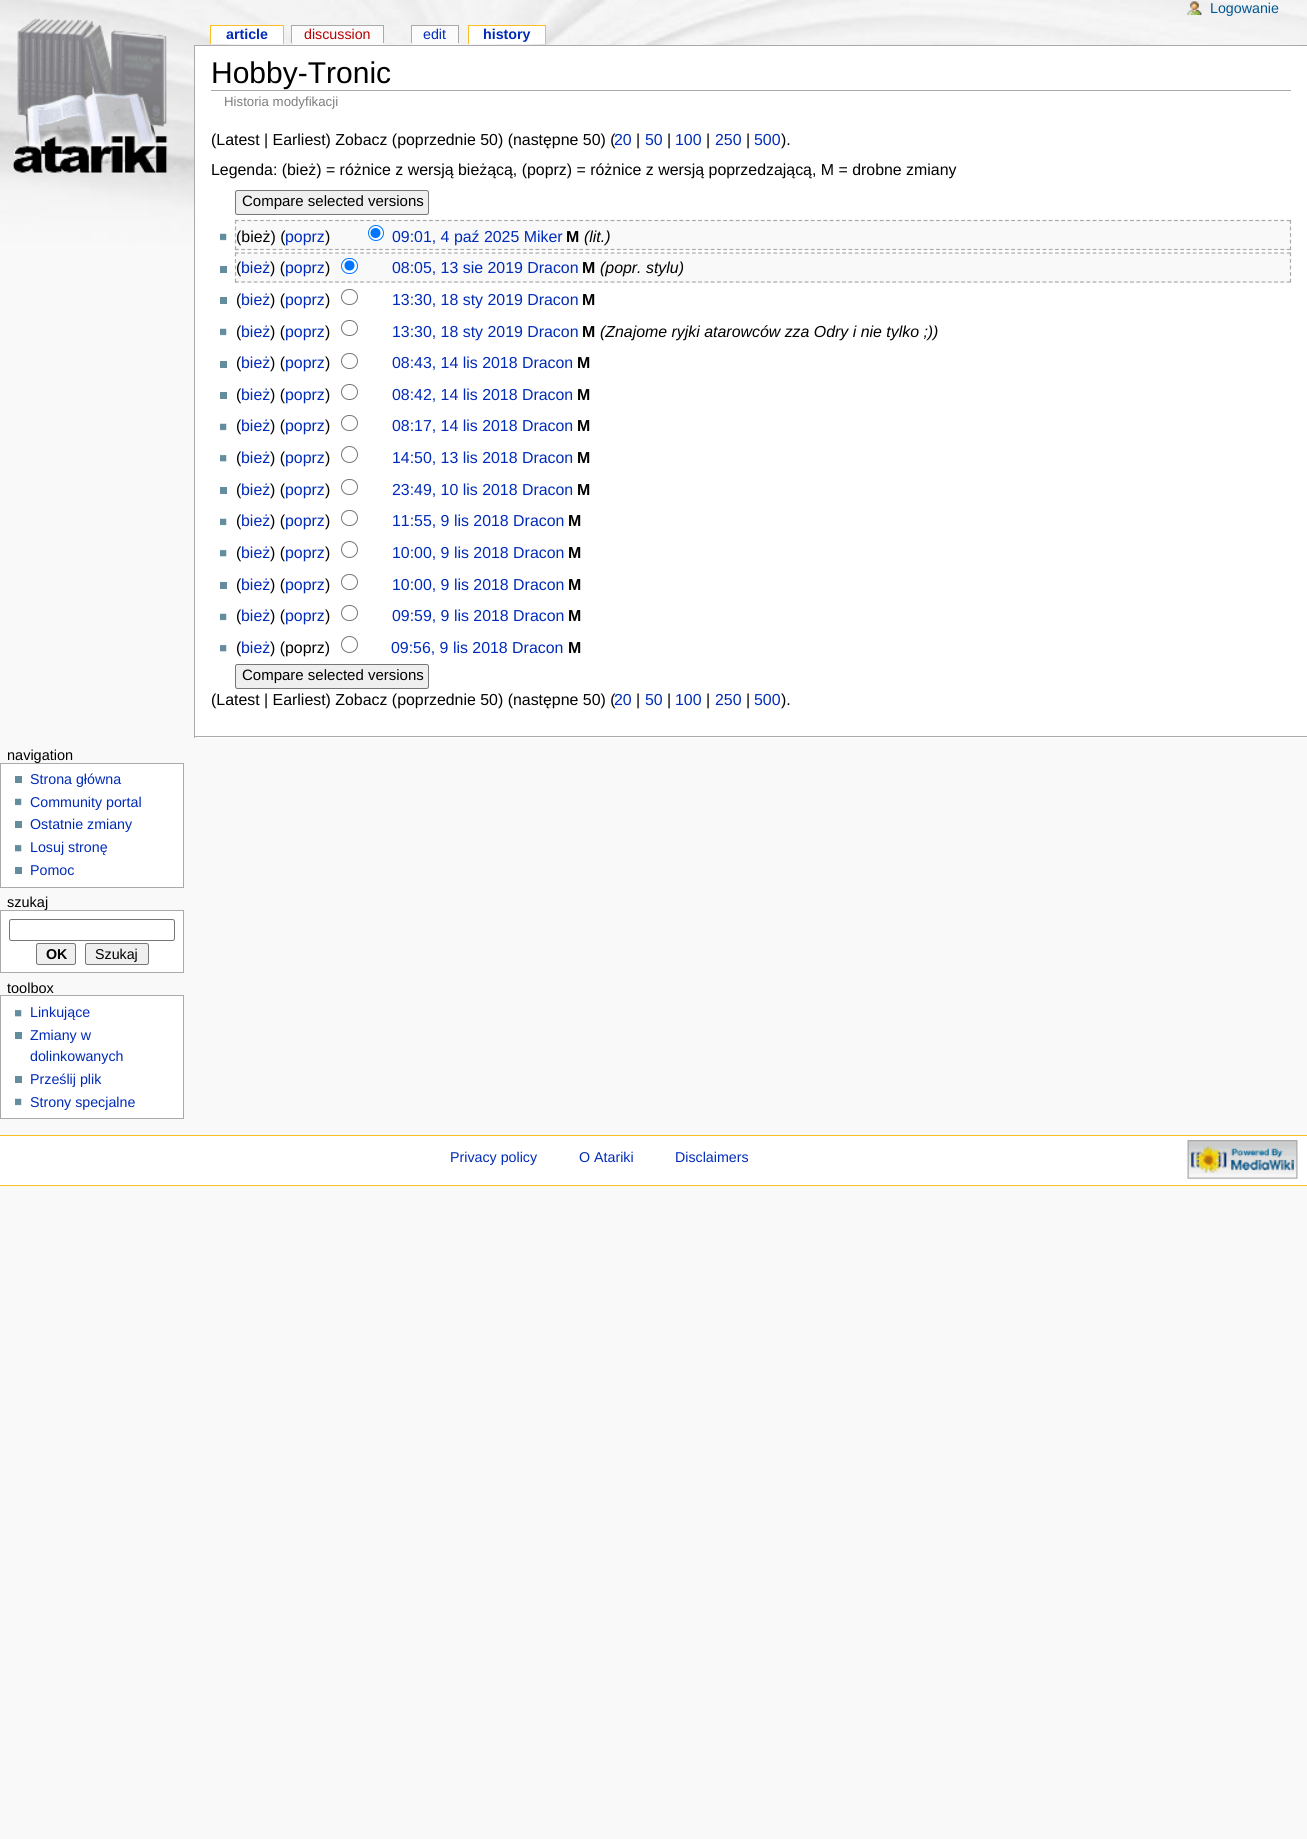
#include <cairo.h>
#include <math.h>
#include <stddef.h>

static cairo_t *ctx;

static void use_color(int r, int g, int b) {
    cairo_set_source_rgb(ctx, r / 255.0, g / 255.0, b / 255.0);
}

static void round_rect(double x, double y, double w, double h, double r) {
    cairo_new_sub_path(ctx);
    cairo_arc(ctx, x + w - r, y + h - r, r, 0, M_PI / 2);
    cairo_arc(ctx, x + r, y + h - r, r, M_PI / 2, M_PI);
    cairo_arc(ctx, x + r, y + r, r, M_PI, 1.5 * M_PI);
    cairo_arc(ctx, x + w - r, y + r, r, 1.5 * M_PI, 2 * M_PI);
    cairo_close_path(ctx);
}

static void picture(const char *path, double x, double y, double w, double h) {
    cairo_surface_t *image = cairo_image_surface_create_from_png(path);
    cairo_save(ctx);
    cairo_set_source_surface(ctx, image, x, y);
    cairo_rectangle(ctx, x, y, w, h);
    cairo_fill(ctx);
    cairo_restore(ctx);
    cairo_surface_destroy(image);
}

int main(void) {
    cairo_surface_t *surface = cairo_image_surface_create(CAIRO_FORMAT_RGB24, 1307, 1839);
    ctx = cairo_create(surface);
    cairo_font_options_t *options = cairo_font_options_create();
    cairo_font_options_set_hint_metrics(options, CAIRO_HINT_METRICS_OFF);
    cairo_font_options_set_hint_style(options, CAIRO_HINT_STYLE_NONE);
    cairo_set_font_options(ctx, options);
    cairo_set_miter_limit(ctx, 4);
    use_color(249, 249, 249);
    cairo_paint(ctx);
    picture("img1.png", 0, 0, 1307, 243);
    picture("img2.png", 1187, 1, 15, 14);
    cairo_select_font_face(ctx, "Liberation Sans", CAIRO_FONT_SLANT_NORMAL, CAIRO_FONT_WEIGHT_NORMAL);
    cairo_set_font_size(ctx, 14.25);
    use_color(0, 88, 150);
    cairo_move_to(ctx, 1210, 13);
    cairo_show_text(ctx, "Logowanie");
    picture("img3.png", 12, 18, 156, 155);
    use_color(255, 255, 255);
    cairo_rectangle(ctx, 211, 26, 72, 18);
    cairo_fill(ctx);
    cairo_select_font_face(ctx, "Liberation Sans", CAIRO_FONT_SLANT_NORMAL, CAIRO_FONT_WEIGHT_BOLD);
    use_color(0, 43, 184);
    cairo_move_to(ctx, 226, 39);
    cairo_show_text(ctx, "article");
    use_color(250, 189, 35);
    cairo_rectangle(ctx, 210, 25, 74, 1);
    cairo_fill(ctx);
    cairo_rectangle(ctx, 283, 25, 1, 19);
    cairo_fill(ctx);
    cairo_rectangle(ctx, 210, 25, 1, 19);
    cairo_fill(ctx);
    use_color(251, 251, 251);
    cairo_rectangle(ctx, 293, 26, 90, 19);
    cairo_fill(ctx);
    cairo_select_font_face(ctx, "Liberation Sans", CAIRO_FONT_SLANT_NORMAL, CAIRO_FONT_WEIGHT_NORMAL);
    use_color(186, 0, 0);
    cairo_move_to(ctx, 304, 39);
    cairo_show_text(ctx, "discussion");
    use_color(255, 255, 255);
    cairo_rectangle(ctx, 292, 26, 1, 17);
    cairo_fill(ctx);
    use_color(170, 170, 170);
    cairo_rectangle(ctx, 291, 25, 93, 1);
    cairo_fill(ctx);
    cairo_rectangle(ctx, 383, 25, 1, 18);
    cairo_fill(ctx);
    cairo_rectangle(ctx, 291, 25, 1, 18);
    cairo_fill(ctx);
    use_color(251, 251, 251);
    cairo_rectangle(ctx, 413, 26, 45, 19);
    cairo_fill(ctx);
    use_color(0, 43, 184);
    cairo_move_to(ctx, 423, 39);
    cairo_show_text(ctx, "edit");
    use_color(255, 255, 255);
    cairo_rectangle(ctx, 412, 26, 1, 17);
    cairo_fill(ctx);
    use_color(170, 170, 170);
    cairo_rectangle(ctx, 411, 25, 48, 1);
    cairo_fill(ctx);
    cairo_rectangle(ctx, 458, 25, 1, 18);
    cairo_fill(ctx);
    cairo_rectangle(ctx, 411, 25, 1, 18);
    cairo_fill(ctx);
    use_color(255, 255, 255);
    cairo_rectangle(ctx, 469, 26, 76, 18);
    cairo_fill(ctx);
    cairo_select_font_face(ctx, "Liberation Sans", CAIRO_FONT_SLANT_NORMAL, CAIRO_FONT_WEIGHT_BOLD);
    use_color(0, 43, 184);
    cairo_move_to(ctx, 483, 39);
    cairo_show_text(ctx, "history");
    use_color(250, 189, 35);
    cairo_rectangle(ctx, 468, 25, 78, 1);
    cairo_fill(ctx);
    cairo_rectangle(ctx, 545, 25, 1, 19);
    cairo_fill(ctx);
    cairo_rectangle(ctx, 468, 25, 1, 19);
    cairo_fill(ctx);
    cairo_select_font_face(ctx, "Liberation Sans", CAIRO_FONT_SLANT_NORMAL, CAIRO_FONT_WEIGHT_NORMAL);
    cairo_set_font_size(ctx, 14.5);
    use_color(0, 0, 0);
    cairo_move_to(ctx, 7, 760);
    cairo_show_text(ctx, "navigation");
    use_color(255, 255, 255);
    cairo_rectangle(ctx, 0.5, 763.5, 183, 124);
    cairo_fill_preserve(ctx);
    use_color(170, 170, 170);
    cairo_set_line_width(ctx, 1);
    cairo_stroke(ctx);
    use_color(99, 140, 156);
    cairo_rectangle(ctx, 15, 776, 7, 7);
    cairo_fill(ctx);
    cairo_set_font_size(ctx, 14.25);
    use_color(0, 43, 184);
    cairo_move_to(ctx, 30, 784);
    cairo_show_text(ctx, "Strona główna");
    picture("img4.png", 15, 798, 7, 8);
    cairo_move_to(ctx, 30, 807);
    cairo_show_text(ctx, "Community portal");
    use_color(99, 140, 156);
    cairo_rectangle(ctx, 15, 821, 7, 7);
    cairo_fill(ctx);
    use_color(0, 43, 184);
    cairo_move_to(ctx, 30, 829);
    cairo_show_text(ctx, "Ostatnie zmiany");
    picture("img5.png", 15, 844, 7, 8);
    cairo_move_to(ctx, 30, 852);
    cairo_show_text(ctx, "Losuj stronę");
    use_color(99, 140, 156);
    cairo_rectangle(ctx, 15, 867, 7, 7);
    cairo_fill(ctx);
    use_color(0, 43, 184);
    cairo_move_to(ctx, 30, 875);
    cairo_show_text(ctx, "Pomoc");
    cairo_set_font_size(ctx, 14.5);
    use_color(0, 0, 0);
    cairo_move_to(ctx, 7, 907);
    cairo_show_text(ctx, "szukaj");
    use_color(255, 255, 255);
    cairo_rectangle(ctx, 0.5, 910.5, 183, 62);
    cairo_fill_preserve(ctx);
    use_color(170, 170, 170);
    cairo_stroke(ctx);
    round_rect(9.5, 919.5, 165, 21, 2);
    use_color(118, 118, 118);
    cairo_stroke(ctx);
    use_color(239, 239, 239);
    round_rect(36.5, 943.5, 39, 21, 2);
    cairo_fill_preserve(ctx);
    use_color(118, 118, 118);
    cairo_stroke(ctx);
    cairo_select_font_face(ctx, "Liberation Sans", CAIRO_FONT_SLANT_NORMAL, CAIRO_FONT_WEIGHT_BOLD);
    cairo_set_font_size(ctx, 14.25);
    use_color(0, 0, 0);
    cairo_move_to(ctx, 46, 959);
    cairo_show_text(ctx, "OK");
    use_color(239, 239, 239);
    round_rect(85.5, 943.5, 63, 21, 2);
    cairo_fill_preserve(ctx);
    use_color(118, 118, 118);
    cairo_stroke(ctx);
    cairo_select_font_face(ctx, "Liberation Sans", CAIRO_FONT_SLANT_NORMAL, CAIRO_FONT_WEIGHT_NORMAL);
    use_color(0, 0, 0);
    cairo_move_to(ctx, 95, 959);
    cairo_show_text(ctx, "Szukaj");
    cairo_set_font_size(ctx, 14.5);
    cairo_move_to(ctx, 7, 993);
    cairo_show_text(ctx, "toolbox");
    use_color(255, 255, 255);
    cairo_rectangle(ctx, 0.5, 995.5, 183, 123);
    cairo_fill_preserve(ctx);
    use_color(170, 170, 170);
    cairo_stroke(ctx);
    picture("img5.png", 15, 1009, 7, 8);
    cairo_set_font_size(ctx, 14.25);
    use_color(0, 43, 184);
    cairo_move_to(ctx, 30, 1017);
    cairo_show_text(ctx, "Linkujące");
    use_color(99, 140, 156);
    cairo_rectangle(ctx, 15, 1032, 7, 7);
    cairo_fill(ctx);
    use_color(0, 43, 184);
    cairo_move_to(ctx, 30, 1040);
    cairo_show_text(ctx, "Zmiany w");
    cairo_move_to(ctx, 30, 1061);
    cairo_show_text(ctx, "dolinkowanych");
    use_color(99, 140, 156);
    cairo_rectangle(ctx, 15, 1076, 7, 7);
    cairo_fill(ctx);
    use_color(0, 43, 184);
    cairo_move_to(ctx, 30, 1084);
    cairo_show_text(ctx, "Prześlij plik");
    picture("img4.png", 15, 1098, 7, 8);
    cairo_move_to(ctx, 30, 1107);
    cairo_show_text(ctx, "Strony specjalne");
    use_color(255, 255, 255);
    cairo_rectangle(ctx, 195, 46, 1112, 692);
    cairo_fill(ctx);
    use_color(170, 170, 170);
    cairo_rectangle(ctx, 194, 45, 1113, 1);
    cairo_fill(ctx);
    cairo_rectangle(ctx, 194, 736, 1113, 1);
    cairo_fill(ctx);
    cairo_rectangle(ctx, 194, 45, 1, 693);
    cairo_fill(ctx);
    cairo_rectangle(ctx, 211, 90, 1080, 1);
    cairo_fill(ctx);
    cairo_set_font_size(ctx, 30);
    use_color(0, 0, 0);
    cairo_move_to(ctx, 211, 83);
    cairo_show_text(ctx, "Hobby-Tronic");
    cairo_set_font_size(ctx, 13.25);
    use_color(125, 125, 125);
    cairo_move_to(ctx, 224, 106);
    cairo_show_text(ctx, "Historia modyfikacji");
    cairo_set_font_size(ctx, 15.9);
    use_color(0, 0, 0);
    cairo_move_to(ctx, 211, 145);
    cairo_show_text(ctx, "(Latest | Earliest) Zobacz (poprzednie 50) (następne 50) (");
    use_color(0, 43, 184);
    cairo_move_to(ctx, 614, 145);
    cairo_show_text(ctx, "20");
    use_color(0, 0, 0);
    cairo_move_to(ctx, 636, 145);
    cairo_show_text(ctx, "|");
    use_color(0, 43, 184);
    cairo_move_to(ctx, 645, 145);
    cairo_show_text(ctx, "50");
    use_color(0, 0, 0);
    cairo_move_to(ctx, 667, 145);
    cairo_show_text(ctx, "|");
    use_color(0, 43, 184);
    cairo_move_to(ctx, 675, 145);
    cairo_show_text(ctx, "100");
    use_color(0, 0, 0);
    cairo_move_to(ctx, 706, 145);
    cairo_show_text(ctx, "|");
    use_color(0, 43, 184);
    cairo_move_to(ctx, 715, 145);
    cairo_show_text(ctx, "250");
    use_color(0, 0, 0);
    cairo_move_to(ctx, 746, 145);
    cairo_show_text(ctx, "|");
    use_color(0, 43, 184);
    cairo_move_to(ctx, 754, 145);
    cairo_show_text(ctx, "500");
    use_color(0, 0, 0);
    cairo_move_to(ctx, 781, 145);
    cairo_show_text(ctx, ").");
    cairo_move_to(ctx, 211, 175);
    cairo_show_text(ctx, "Legenda: (bież) = różnice z wersją bieżącą, (poprz) = różnice z wersją poprzedzającą, M = drobne zmiany");
    use_color(239, 239, 239);
    round_rect(235.5, 190.5, 193, 24, 2);
    cairo_fill_preserve(ctx);
    use_color(118, 118, 118);
    cairo_stroke(ctx);
    cairo_set_font_size(ctx, 15);
    use_color(0, 0, 0);
    cairo_move_to(ctx, 242, 206);
    cairo_show_text(ctx, "Compare selected versions");
    use_color(249, 249, 249);
    cairo_rectangle(ctx, 235, 220, 1056, 30);
    cairo_fill(ctx);
    cairo_new_path(ctx);
    cairo_move_to(ctx, 235, 220.5);
    cairo_line_to(ctx, 1291, 220.5);
    use_color(170, 170, 170);
    cairo_set_line_width(ctx, 1.2);
    cairo_set_dash(ctx, (double[]){3.75, 2.51}, 2, 0);
    cairo_stroke(ctx);
    cairo_new_path(ctx);
    cairo_move_to(ctx, 1290.5, 220);
    cairo_line_to(ctx, 1290.5, 250);
    cairo_set_dash(ctx, (double[]){3.75, 2.81}, 2, 0);
    cairo_stroke(ctx);
    cairo_new_path(ctx);
    cairo_move_to(ctx, 235, 249.5);
    cairo_line_to(ctx, 1291, 249.5);
    cairo_set_dash(ctx, (double[]){3.75, 2.51}, 2, 0);
    cairo_stroke(ctx);
    cairo_new_path(ctx);
    cairo_move_to(ctx, 235.5, 220);
    cairo_line_to(ctx, 235.5, 250);
    cairo_set_dash(ctx, (double[]){3.75, 2.81}, 2, 0);
    cairo_stroke(ctx);
    picture("img4.png", 220, 233, 7, 8);
    cairo_set_font_size(ctx, 15.9);
    use_color(0, 0, 0);
    cairo_move_to(ctx, 236, 242);
    cairo_show_text(ctx, "(bież) (");
    use_color(0, 43, 184);
    cairo_move_to(ctx, 285, 242);
    cairo_show_text(ctx, "poprz");
    use_color(0, 0, 0);
    cairo_move_to(ctx, 325, 242);
    cairo_show_text(ctx, ")");
    use_color(255, 255, 255);
    cairo_new_path(ctx);
    cairo_arc(ctx, 376, 233, 7.5, 0, 2 * M_PI);
    cairo_fill_preserve(ctx);
    use_color(0, 117, 255);
    cairo_set_line_width(ctx, 1);
    cairo_set_dash(ctx, NULL, 0, 0);
    cairo_stroke(ctx);
    cairo_arc(ctx, 375.5, 233, 5, 0, 2 * M_PI);
    cairo_fill(ctx);
    use_color(0, 43, 184);
    cairo_move_to(ctx, 392, 242);
    cairo_show_text(ctx, "09:01, 4 paź 2025 Miker");
    cairo_select_font_face(ctx, "Liberation Sans", CAIRO_FONT_SLANT_NORMAL, CAIRO_FONT_WEIGHT_BOLD);
    use_color(0, 0, 0);
    cairo_move_to(ctx, 566, 242);
    cairo_show_text(ctx, "M");
    cairo_select_font_face(ctx, "Liberation Sans", CAIRO_FONT_SLANT_ITALIC, CAIRO_FONT_WEIGHT_NORMAL);
    cairo_move_to(ctx, 584, 242);
    cairo_show_text(ctx, "(lit.)");
    use_color(249, 249, 249);
    cairo_rectangle(ctx, 235, 253, 1056, 30);
    cairo_fill(ctx);
    cairo_new_path(ctx);
    cairo_move_to(ctx, 235, 253);
    cairo_line_to(ctx, 1291, 253);
    use_color(170, 170, 170);
    cairo_set_line_width(ctx, 1.2);
    cairo_set_dash(ctx, (double[]){3.75, 2.51}, 2, 0);
    cairo_stroke(ctx);
    cairo_new_path(ctx);
    cairo_move_to(ctx, 1290.5, 252.5);
    cairo_line_to(ctx, 1290.5, 282.5);
    cairo_set_dash(ctx, (double[]){3.75, 2.81}, 2, 0);
    cairo_stroke(ctx);
    cairo_new_path(ctx);
    cairo_move_to(ctx, 235, 282);
    cairo_line_to(ctx, 1291, 282);
    cairo_set_dash(ctx, (double[]){3.75, 2.51}, 2, 0);
    cairo_stroke(ctx);
    cairo_new_path(ctx);
    cairo_move_to(ctx, 235.5, 252.5);
    cairo_line_to(ctx, 235.5, 282.5);
    cairo_set_dash(ctx, (double[]){3.75, 2.81}, 2, 0);
    cairo_stroke(ctx);
    use_color(99, 140, 156);
    cairo_rectangle(ctx, 220, 266, 7, 7);
    cairo_fill(ctx);
    cairo_select_font_face(ctx, "Liberation Sans", CAIRO_FONT_SLANT_NORMAL, CAIRO_FONT_WEIGHT_NORMAL);
    use_color(0, 0, 0);
    cairo_move_to(ctx, 236, 273);
    cairo_show_text(ctx, "(");
    use_color(0, 43, 184);
    cairo_move_to(ctx, 241, 273);
    cairo_show_text(ctx, "bież");
    use_color(0, 0, 0);
    cairo_move_to(ctx, 270, 273);
    cairo_show_text(ctx, ") (");
    use_color(0, 43, 184);
    cairo_move_to(ctx, 285, 273);
    cairo_show_text(ctx, "poprz");
    use_color(0, 0, 0);
    cairo_move_to(ctx, 325, 273);
    cairo_show_text(ctx, ")");
    use_color(255, 255, 255);
    round_rect(341.5, 258.5, 16, 15, 7.5);
    cairo_fill_preserve(ctx);
    use_color(0, 117, 255);
    cairo_set_line_width(ctx, 1);
    cairo_set_dash(ctx, NULL, 0, 0);
    cairo_stroke(ctx);
    cairo_arc(ctx, 349.5, 265.5, 5, 0, 2 * M_PI);
    cairo_fill(ctx);
    use_color(0, 43, 184);
    cairo_move_to(ctx, 392, 273);
    cairo_show_text(ctx, "08:05, 13 sie 2019 Dracon");
    cairo_select_font_face(ctx, "Liberation Sans", CAIRO_FONT_SLANT_NORMAL, CAIRO_FONT_WEIGHT_BOLD);
    use_color(0, 0, 0);
    cairo_move_to(ctx, 582, 273);
    cairo_show_text(ctx, "M");
    cairo_select_font_face(ctx, "Liberation Sans", CAIRO_FONT_SLANT_ITALIC, CAIRO_FONT_WEIGHT_NORMAL);
    cairo_move_to(ctx, 600, 273);
    cairo_show_text(ctx, "(popr. stylu)");
    use_color(99, 140, 156);
    cairo_rectangle(ctx, 220, 297, 7, 7);
    cairo_fill(ctx);
    cairo_select_font_face(ctx, "Liberation Sans", CAIRO_FONT_SLANT_NORMAL, CAIRO_FONT_WEIGHT_NORMAL);
    use_color(0, 0, 0);
    cairo_move_to(ctx, 236, 305);
    cairo_show_text(ctx, "(");
    use_color(0, 43, 184);
    cairo_move_to(ctx, 241, 305);
    cairo_show_text(ctx, "bież");
    use_color(0, 0, 0);
    cairo_move_to(ctx, 270, 305);
    cairo_show_text(ctx, ") (");
    use_color(0, 43, 184);
    cairo_move_to(ctx, 285, 305);
    cairo_show_text(ctx, "poprz");
    use_color(0, 0, 0);
    cairo_move_to(ctx, 325, 305);
    cairo_show_text(ctx, ")");
    round_rect(341.5, 289.5, 16, 15, 7.5);
    use_color(118, 118, 118);
    cairo_stroke(ctx);
    use_color(0, 43, 184);
    cairo_move_to(ctx, 392, 305);
    cairo_show_text(ctx, "13:30, 18 sty 2019 Dracon");
    cairo_select_font_face(ctx, "Liberation Sans", CAIRO_FONT_SLANT_NORMAL, CAIRO_FONT_WEIGHT_BOLD);
    use_color(0, 0, 0);
    cairo_move_to(ctx, 582, 305);
    cairo_show_text(ctx, "M");
    picture("img4.png", 220, 328, 7, 8);
    cairo_select_font_face(ctx, "Liberation Sans", CAIRO_FONT_SLANT_NORMAL, CAIRO_FONT_WEIGHT_NORMAL);
    cairo_move_to(ctx, 236, 337);
    cairo_show_text(ctx, "(");
    use_color(0, 43, 184);
    cairo_move_to(ctx, 241, 337);
    cairo_show_text(ctx, "bież");
    use_color(0, 0, 0);
    cairo_move_to(ctx, 270, 337);
    cairo_show_text(ctx, ") (");
    use_color(0, 43, 184);
    cairo_move_to(ctx, 285, 337);
    cairo_show_text(ctx, "poprz");
    use_color(0, 0, 0);
    cairo_move_to(ctx, 325, 337);
    cairo_show_text(ctx, ")");
    round_rect(341.5, 320.5, 16, 15, 7.5);
    use_color(118, 118, 118);
    cairo_stroke(ctx);
    use_color(0, 43, 184);
    cairo_move_to(ctx, 392, 337);
    cairo_show_text(ctx, "13:30, 18 sty 2019 Dracon");
    cairo_select_font_face(ctx, "Liberation Sans", CAIRO_FONT_SLANT_NORMAL, CAIRO_FONT_WEIGHT_BOLD);
    use_color(0, 0, 0);
    cairo_move_to(ctx, 582, 337);
    cairo_show_text(ctx, "M");
    cairo_select_font_face(ctx, "Liberation Sans", CAIRO_FONT_SLANT_ITALIC, CAIRO_FONT_WEIGHT_NORMAL);
    cairo_move_to(ctx, 600, 337);
    cairo_show_text(ctx, "(Znajome ryjki atarowców zza Odry i nie tylko ;))");
    use_color(99, 140, 156);
    cairo_rectangle(ctx, 220, 361, 7, 7);
    cairo_fill(ctx);
    cairo_select_font_face(ctx, "Liberation Sans", CAIRO_FONT_SLANT_NORMAL, CAIRO_FONT_WEIGHT_NORMAL);
    use_color(0, 0, 0);
    cairo_move_to(ctx, 236, 368);
    cairo_show_text(ctx, "(");
    use_color(0, 43, 184);
    cairo_move_to(ctx, 241, 368);
    cairo_show_text(ctx, "bież");
    use_color(0, 0, 0);
    cairo_move_to(ctx, 270, 368);
    cairo_show_text(ctx, ") (");
    use_color(0, 43, 184);
    cairo_move_to(ctx, 285, 368);
    cairo_show_text(ctx, "poprz");
    use_color(0, 0, 0);
    cairo_move_to(ctx, 325, 368);
    cairo_show_text(ctx, ")");
    round_rect(341.5, 353.5, 16, 15, 7.5);
    use_color(118, 118, 118);
    cairo_stroke(ctx);
    use_color(0, 43, 184);
    cairo_move_to(ctx, 392, 368);
    cairo_show_text(ctx, "08:43, 14 lis 2018 Dracon");
    cairo_select_font_face(ctx, "Liberation Sans", CAIRO_FONT_SLANT_NORMAL, CAIRO_FONT_WEIGHT_BOLD);
    use_color(0, 0, 0);
    cairo_move_to(ctx, 577, 368);
    cairo_show_text(ctx, "M");
    use_color(99, 140, 156);
    cairo_rectangle(ctx, 220, 392, 7, 7);
    cairo_fill(ctx);
    cairo_select_font_face(ctx, "Liberation Sans", CAIRO_FONT_SLANT_NORMAL, CAIRO_FONT_WEIGHT_NORMAL);
    use_color(0, 0, 0);
    cairo_move_to(ctx, 236, 400);
    cairo_show_text(ctx, "(");
    use_color(0, 43, 184);
    cairo_move_to(ctx, 241, 400);
    cairo_show_text(ctx, "bież");
    use_color(0, 0, 0);
    cairo_move_to(ctx, 270, 400);
    cairo_show_text(ctx, ") (");
    use_color(0, 43, 184);
    cairo_move_to(ctx, 285, 400);
    cairo_show_text(ctx, "poprz");
    use_color(0, 0, 0);
    cairo_move_to(ctx, 325, 400);
    cairo_show_text(ctx, ")");
    round_rect(341.5, 384.5, 16, 15, 7.5);
    use_color(118, 118, 118);
    cairo_stroke(ctx);
    use_color(0, 43, 184);
    cairo_move_to(ctx, 392, 400);
    cairo_show_text(ctx, "08:42, 14 lis 2018 Dracon");
    cairo_select_font_face(ctx, "Liberation Sans", CAIRO_FONT_SLANT_NORMAL, CAIRO_FONT_WEIGHT_BOLD);
    use_color(0, 0, 0);
    cairo_move_to(ctx, 577, 400);
    cairo_show_text(ctx, "M");
    picture("img4.png", 220, 423, 7, 8);
    cairo_select_font_face(ctx, "Liberation Sans", CAIRO_FONT_SLANT_NORMAL, CAIRO_FONT_WEIGHT_NORMAL);
    cairo_move_to(ctx, 236, 431);
    cairo_show_text(ctx, "(");
    use_color(0, 43, 184);
    cairo_move_to(ctx, 241, 431);
    cairo_show_text(ctx, "bież");
    use_color(0, 0, 0);
    cairo_move_to(ctx, 270, 431);
    cairo_show_text(ctx, ") (");
    use_color(0, 43, 184);
    cairo_move_to(ctx, 285, 431);
    cairo_show_text(ctx, "poprz");
    use_color(0, 0, 0);
    cairo_move_to(ctx, 325, 431);
    cairo_show_text(ctx, ")");
    round_rect(341.5, 415.5, 16, 15, 7.5);
    use_color(118, 118, 118);
    cairo_stroke(ctx);
    use_color(0, 43, 184);
    cairo_move_to(ctx, 392, 431);
    cairo_show_text(ctx, "08:17, 14 lis 2018 Dracon");
    cairo_select_font_face(ctx, "Liberation Sans", CAIRO_FONT_SLANT_NORMAL, CAIRO_FONT_WEIGHT_BOLD);
    use_color(0, 0, 0);
    cairo_move_to(ctx, 577, 431);
    cairo_show_text(ctx, "M");
    picture("img5.png", 220, 454, 7, 8);
    cairo_select_font_face(ctx, "Liberation Sans", CAIRO_FONT_SLANT_NORMAL, CAIRO_FONT_WEIGHT_NORMAL);
    cairo_move_to(ctx, 236, 463);
    cairo_show_text(ctx, "(");
    use_color(0, 43, 184);
    cairo_move_to(ctx, 241, 463);
    cairo_show_text(ctx, "bież");
    use_color(0, 0, 0);
    cairo_move_to(ctx, 270, 463);
    cairo_show_text(ctx, ") (");
    use_color(0, 43, 184);
    cairo_move_to(ctx, 285, 463);
    cairo_show_text(ctx, "poprz");
    use_color(0, 0, 0);
    cairo_move_to(ctx, 325, 463);
    cairo_show_text(ctx, ")");
    cairo_new_path(ctx);
    cairo_arc(ctx, 349.5, 454.5, 8, 0, 2 * M_PI);
    use_color(118, 118, 118);
    cairo_stroke(ctx);
    use_color(0, 43, 184);
    cairo_move_to(ctx, 392, 463);
    cairo_show_text(ctx, "14:50, 13 lis 2018 Dracon");
    cairo_select_font_face(ctx, "Liberation Sans", CAIRO_FONT_SLANT_NORMAL, CAIRO_FONT_WEIGHT_BOLD);
    use_color(0, 0, 0);
    cairo_move_to(ctx, 577, 463);
    cairo_show_text(ctx, "M");
    use_color(99, 140, 156);
    cairo_rectangle(ctx, 220, 487, 7, 7);
    cairo_fill(ctx);
    cairo_select_font_face(ctx, "Liberation Sans", CAIRO_FONT_SLANT_NORMAL, CAIRO_FONT_WEIGHT_NORMAL);
    use_color(0, 0, 0);
    cairo_move_to(ctx, 236, 495);
    cairo_show_text(ctx, "(");
    use_color(0, 43, 184);
    cairo_move_to(ctx, 241, 495);
    cairo_show_text(ctx, "bież");
    use_color(0, 0, 0);
    cairo_move_to(ctx, 270, 495);
    cairo_show_text(ctx, ") (");
    use_color(0, 43, 184);
    cairo_move_to(ctx, 285, 495);
    cairo_show_text(ctx, "poprz");
    use_color(0, 0, 0);
    cairo_move_to(ctx, 325, 495);
    cairo_show_text(ctx, ")");
    round_rect(341.5, 479.5, 16, 15, 7.5);
    use_color(118, 118, 118);
    cairo_stroke(ctx);
    use_color(0, 43, 184);
    cairo_move_to(ctx, 392, 495);
    cairo_show_text(ctx, "23:49, 10 lis 2018 Dracon");
    cairo_select_font_face(ctx, "Liberation Sans", CAIRO_FONT_SLANT_NORMAL, CAIRO_FONT_WEIGHT_BOLD);
    use_color(0, 0, 0);
    cairo_move_to(ctx, 577, 495);
    cairo_show_text(ctx, "M");
    picture("img4.png", 220, 518, 7, 8);
    cairo_select_font_face(ctx, "Liberation Sans", CAIRO_FONT_SLANT_NORMAL, CAIRO_FONT_WEIGHT_NORMAL);
    cairo_move_to(ctx, 236, 526);
    cairo_show_text(ctx, "(");
    use_color(0, 43, 184);
    cairo_move_to(ctx, 241, 526);
    cairo_show_text(ctx, "bież");
    use_color(0, 0, 0);
    cairo_move_to(ctx, 270, 526);
    cairo_show_text(ctx, ") (");
    use_color(0, 43, 184);
    cairo_move_to(ctx, 285, 526);
    cairo_show_text(ctx, "poprz");
    use_color(0, 0, 0);
    cairo_move_to(ctx, 325, 526);
    cairo_show_text(ctx, ")");
    round_rect(341.5, 510.5, 16, 15, 7.5);
    use_color(118, 118, 118);
    cairo_stroke(ctx);
    use_color(0, 43, 184);
    cairo_move_to(ctx, 392, 526);
    cairo_show_text(ctx, "11:55, 9 lis 2018 Dracon");
    cairo_select_font_face(ctx, "Liberation Sans", CAIRO_FONT_SLANT_NORMAL, CAIRO_FONT_WEIGHT_BOLD);
    use_color(0, 0, 0);
    cairo_move_to(ctx, 568, 526);
    cairo_show_text(ctx, "M");
    picture("img5.png", 220, 549, 7, 8);
    cairo_select_font_face(ctx, "Liberation Sans", CAIRO_FONT_SLANT_NORMAL, CAIRO_FONT_WEIGHT_NORMAL);
    cairo_move_to(ctx, 236, 558);
    cairo_show_text(ctx, "(");
    use_color(0, 43, 184);
    cairo_move_to(ctx, 241, 558);
    cairo_show_text(ctx, "bież");
    use_color(0, 0, 0);
    cairo_move_to(ctx, 270, 558);
    cairo_show_text(ctx, ") (");
    use_color(0, 43, 184);
    cairo_move_to(ctx, 285, 558);
    cairo_show_text(ctx, "poprz");
    use_color(0, 0, 0);
    cairo_move_to(ctx, 325, 558);
    cairo_show_text(ctx, ")");
    cairo_new_path(ctx);
    cairo_arc(ctx, 349.5, 549.5, 8, 0, 2 * M_PI);
    use_color(118, 118, 118);
    cairo_stroke(ctx);
    use_color(0, 43, 184);
    cairo_move_to(ctx, 392, 558);
    cairo_show_text(ctx, "10:00, 9 lis 2018 Dracon");
    cairo_select_font_face(ctx, "Liberation Sans", CAIRO_FONT_SLANT_NORMAL, CAIRO_FONT_WEIGHT_BOLD);
    use_color(0, 0, 0);
    cairo_move_to(ctx, 568, 558);
    cairo_show_text(ctx, "M");
    use_color(99, 140, 156);
    cairo_rectangle(ctx, 220, 582, 7, 7);
    cairo_fill(ctx);
    cairo_select_font_face(ctx, "Liberation Sans", CAIRO_FONT_SLANT_NORMAL, CAIRO_FONT_WEIGHT_NORMAL);
    use_color(0, 0, 0);
    cairo_move_to(ctx, 236, 590);
    cairo_show_text(ctx, "(");
    use_color(0, 43, 184);
    cairo_move_to(ctx, 241, 590);
    cairo_show_text(ctx, "bież");
    use_color(0, 0, 0);
    cairo_move_to(ctx, 270, 590);
    cairo_show_text(ctx, ") (");
    use_color(0, 43, 184);
    cairo_move_to(ctx, 285, 590);
    cairo_show_text(ctx, "poprz");
    use_color(0, 0, 0);
    cairo_move_to(ctx, 325, 590);
    cairo_show_text(ctx, ")");
    round_rect(341.5, 574.5, 16, 15, 7.5);
    use_color(118, 118, 118);
    cairo_stroke(ctx);
    use_color(0, 43, 184);
    cairo_move_to(ctx, 392, 590);
    cairo_show_text(ctx, "10:00, 9 lis 2018 Dracon");
    cairo_select_font_face(ctx, "Liberation Sans", CAIRO_FONT_SLANT_NORMAL, CAIRO_FONT_WEIGHT_BOLD);
    use_color(0, 0, 0);
    cairo_move_to(ctx, 568, 590);
    cairo_show_text(ctx, "M");
    picture("img4.png", 220, 613, 7, 8);
    cairo_select_font_face(ctx, "Liberation Sans", CAIRO_FONT_SLANT_NORMAL, CAIRO_FONT_WEIGHT_NORMAL);
    cairo_move_to(ctx, 236, 621);
    cairo_show_text(ctx, "(");
    use_color(0, 43, 184);
    cairo_move_to(ctx, 241, 621);
    cairo_show_text(ctx, "bież");
    use_color(0, 0, 0);
    cairo_move_to(ctx, 270, 621);
    cairo_show_text(ctx, ") (");
    use_color(0, 43, 184);
    cairo_move_to(ctx, 285, 621);
    cairo_show_text(ctx, "poprz");
    use_color(0, 0, 0);
    cairo_move_to(ctx, 325, 621);
    cairo_show_text(ctx, ")");
    round_rect(341.5, 605.5, 16, 15, 7.5);
    use_color(118, 118, 118);
    cairo_stroke(ctx);
    use_color(0, 43, 184);
    cairo_move_to(ctx, 392, 621);
    cairo_show_text(ctx, "09:59, 9 lis 2018 Dracon");
    cairo_select_font_face(ctx, "Liberation Sans", CAIRO_FONT_SLANT_NORMAL, CAIRO_FONT_WEIGHT_BOLD);
    use_color(0, 0, 0);
    cairo_move_to(ctx, 568, 621);
    cairo_show_text(ctx, "M");
    picture("img5.png", 220, 644, 7, 8);
    cairo_select_font_face(ctx, "Liberation Sans", CAIRO_FONT_SLANT_NORMAL, CAIRO_FONT_WEIGHT_NORMAL);
    cairo_move_to(ctx, 236, 653);
    cairo_show_text(ctx, "(");
    use_color(0, 43, 184);
    cairo_move_to(ctx, 241, 653);
    cairo_show_text(ctx, "bież");
    use_color(0, 0, 0);
    cairo_move_to(ctx, 270, 653);
    cairo_show_text(ctx, ") (poprz)");
    cairo_new_path(ctx);
    cairo_arc(ctx, 349.5, 644.5, 8, 0, 2 * M_PI);
    use_color(118, 118, 118);
    cairo_stroke(ctx);
    use_color(0, 43, 184);
    cairo_move_to(ctx, 391, 653);
    cairo_show_text(ctx, "09:56, 9 lis 2018 Dracon");
    cairo_select_font_face(ctx, "Liberation Sans", CAIRO_FONT_SLANT_NORMAL, CAIRO_FONT_WEIGHT_BOLD);
    use_color(0, 0, 0);
    cairo_move_to(ctx, 568, 653);
    cairo_show_text(ctx, "M");
    use_color(239, 239, 239);
    round_rect(235.5, 664.5, 193, 24, 2);
    cairo_fill_preserve(ctx);
    use_color(118, 118, 118);
    cairo_stroke(ctx);
    cairo_select_font_face(ctx, "Liberation Sans", CAIRO_FONT_SLANT_NORMAL, CAIRO_FONT_WEIGHT_NORMAL);
    cairo_set_font_size(ctx, 15);
    use_color(0, 0, 0);
    cairo_move_to(ctx, 242, 680);
    cairo_show_text(ctx, "Compare selected versions");
    cairo_set_font_size(ctx, 15.9);
    cairo_move_to(ctx, 211, 705);
    cairo_show_text(ctx, "(Latest | Earliest) Zobacz (poprzednie 50) (następne 50) (");
    use_color(0, 43, 184);
    cairo_move_to(ctx, 614, 705);
    cairo_show_text(ctx, "20");
    use_color(0, 0, 0);
    cairo_move_to(ctx, 636, 705);
    cairo_show_text(ctx, "|");
    use_color(0, 43, 184);
    cairo_move_to(ctx, 645, 705);
    cairo_show_text(ctx, "50");
    use_color(0, 0, 0);
    cairo_move_to(ctx, 667, 705);
    cairo_show_text(ctx, "|");
    use_color(0, 43, 184);
    cairo_move_to(ctx, 675, 705);
    cairo_show_text(ctx, "100");
    use_color(0, 0, 0);
    cairo_move_to(ctx, 706, 705);
    cairo_show_text(ctx, "|");
    use_color(0, 43, 184);
    cairo_move_to(ctx, 715, 705);
    cairo_show_text(ctx, "250");
    use_color(0, 0, 0);
    cairo_move_to(ctx, 746, 705);
    cairo_show_text(ctx, "|");
    use_color(0, 43, 184);
    cairo_move_to(ctx, 754, 705);
    cairo_show_text(ctx, "500");
    use_color(0, 0, 0);
    cairo_move_to(ctx, 781, 705);
    cairo_show_text(ctx, ").");
    use_color(255, 255, 255);
    cairo_rectangle(ctx, 0, 1136, 1307, 49);
    cairo_fill(ctx);
    use_color(250, 189, 35);
    cairo_rectangle(ctx, 0, 1135, 1307, 1);
    cairo_fill(ctx);
    cairo_rectangle(ctx, 0, 1185, 1307, 1);
    cairo_fill(ctx);
    cairo_set_font_size(ctx, 14.25);
    use_color(0, 43, 184);
    cairo_move_to(ctx, 450, 1162);
    cairo_show_text(ctx, "Privacy policy");
    cairo_move_to(ctx, 579, 1162);
    cairo_show_text(ctx, "O Atariki");
    cairo_move_to(ctx, 675, 1162);
    cairo_show_text(ctx, "Disclaimers");
    picture("img6.png", 1187, 1140, 111, 39);
    cairo_surface_write_to_png(surface, "result.png");
    cairo_font_options_destroy(options);
    cairo_destroy(ctx);
    cairo_surface_destroy(surface);
    return 0;
}
